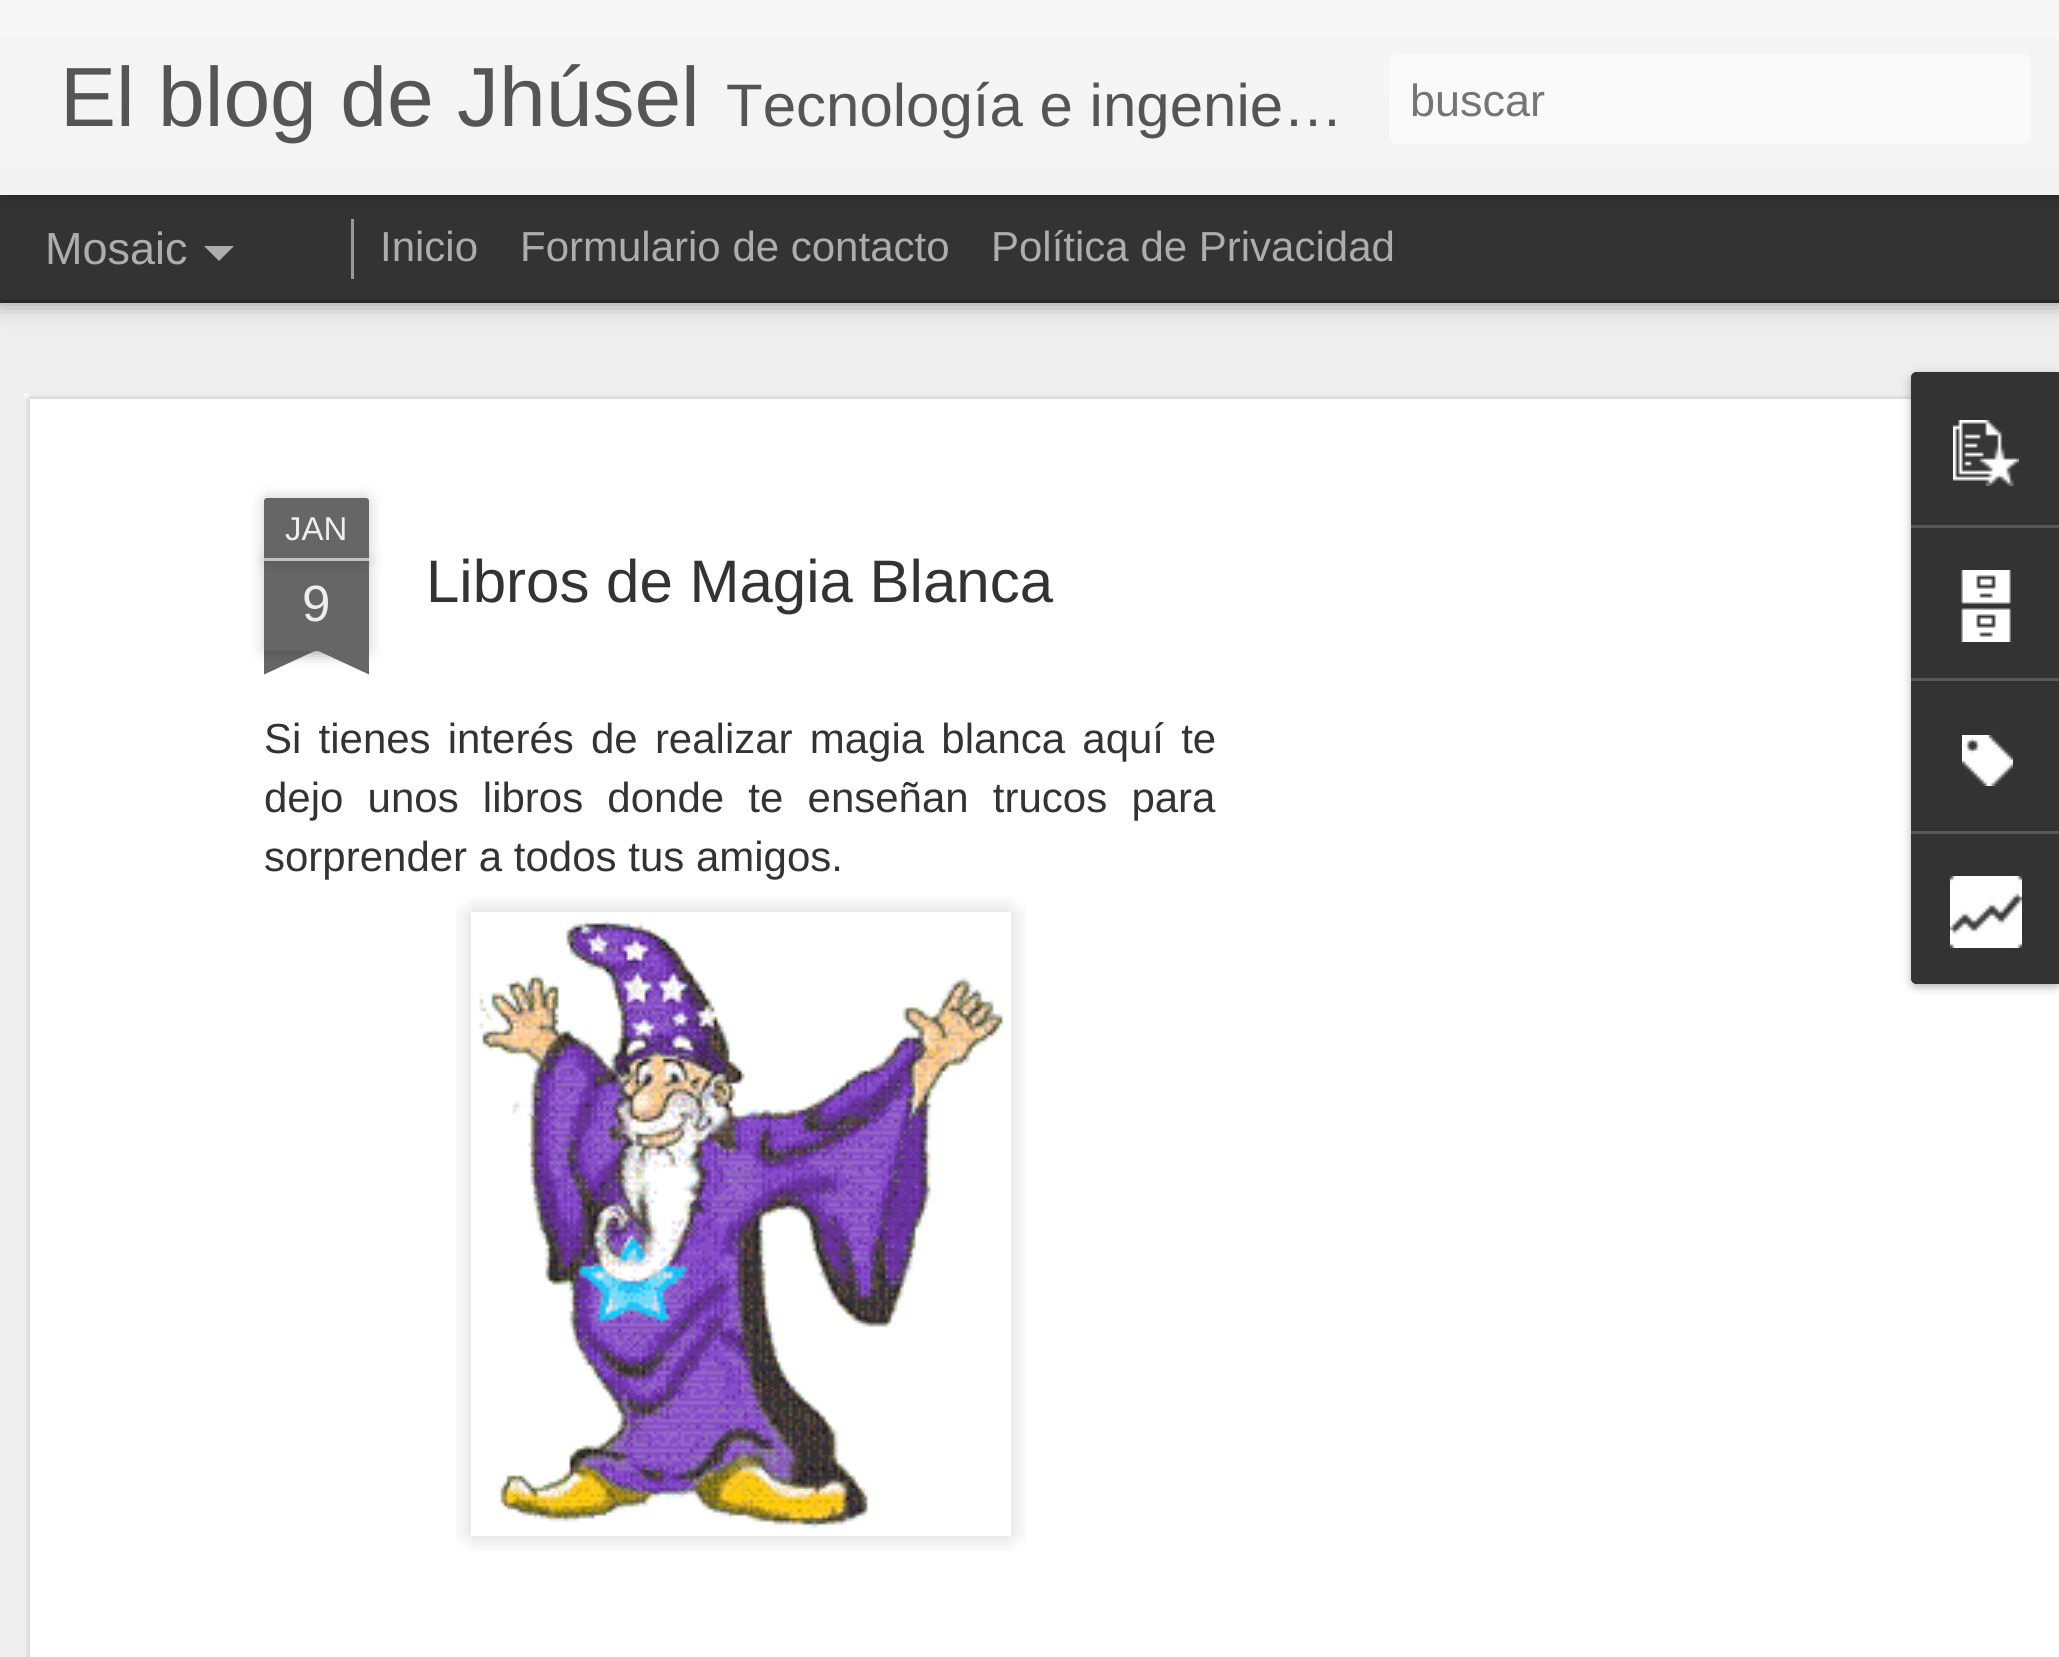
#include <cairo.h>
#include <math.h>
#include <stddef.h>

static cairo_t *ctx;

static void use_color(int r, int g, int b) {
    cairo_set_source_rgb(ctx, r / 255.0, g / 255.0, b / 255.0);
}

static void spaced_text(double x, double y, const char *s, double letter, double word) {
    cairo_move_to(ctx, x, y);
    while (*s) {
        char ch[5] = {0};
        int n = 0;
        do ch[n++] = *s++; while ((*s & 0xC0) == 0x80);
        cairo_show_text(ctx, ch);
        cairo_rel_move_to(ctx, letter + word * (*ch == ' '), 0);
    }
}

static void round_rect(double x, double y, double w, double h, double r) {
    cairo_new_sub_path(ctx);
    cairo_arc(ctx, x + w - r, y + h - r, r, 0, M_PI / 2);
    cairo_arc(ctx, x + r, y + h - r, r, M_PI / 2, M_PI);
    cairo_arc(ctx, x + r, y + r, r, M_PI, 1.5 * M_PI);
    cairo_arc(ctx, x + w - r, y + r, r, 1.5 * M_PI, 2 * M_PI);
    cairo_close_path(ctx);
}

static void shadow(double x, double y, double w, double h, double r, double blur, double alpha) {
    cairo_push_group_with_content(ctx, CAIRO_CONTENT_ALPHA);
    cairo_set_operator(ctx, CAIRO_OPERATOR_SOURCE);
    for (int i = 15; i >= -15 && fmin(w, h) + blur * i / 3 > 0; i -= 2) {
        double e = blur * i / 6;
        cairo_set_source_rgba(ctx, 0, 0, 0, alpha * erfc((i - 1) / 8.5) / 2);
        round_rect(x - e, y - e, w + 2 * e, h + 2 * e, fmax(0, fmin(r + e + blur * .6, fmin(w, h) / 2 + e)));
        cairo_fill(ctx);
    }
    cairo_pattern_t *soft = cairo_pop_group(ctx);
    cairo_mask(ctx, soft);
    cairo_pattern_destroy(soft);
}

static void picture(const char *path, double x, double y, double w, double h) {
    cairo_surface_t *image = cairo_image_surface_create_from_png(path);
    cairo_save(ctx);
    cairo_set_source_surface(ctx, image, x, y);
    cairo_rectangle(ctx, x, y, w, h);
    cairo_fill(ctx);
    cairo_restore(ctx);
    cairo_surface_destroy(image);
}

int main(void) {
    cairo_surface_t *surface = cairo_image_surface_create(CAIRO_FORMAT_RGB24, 2059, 1657);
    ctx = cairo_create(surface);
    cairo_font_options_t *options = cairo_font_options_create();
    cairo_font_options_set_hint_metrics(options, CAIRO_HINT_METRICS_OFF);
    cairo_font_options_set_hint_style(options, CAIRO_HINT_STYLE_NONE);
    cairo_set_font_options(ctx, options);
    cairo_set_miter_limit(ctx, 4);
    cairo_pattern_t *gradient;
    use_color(51, 51, 51);
    cairo_paint(ctx);
    use_color(238, 238, 238);
    cairo_rectangle(ctx, 0, 303, 2059, 1354);
    cairo_fill(ctx);
    use_color(0, 0, 0);
    shadow(0, 195, 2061, 105, 0, 12, 0.5);
    use_color(51, 51, 51);
    cairo_rectangle(ctx, 0, 195, 2059, 105);
    cairo_fill(ctx);
    use_color(0, 0, 0);
    shadow(0, 0, 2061, 195, 0, 7.5, 0.3);
    gradient = cairo_pattern_create_linear(0, 0, 0, 195);
    cairo_pattern_add_color_stop_rgba(gradient, 0, 0.965, 0.965, 0.965, 1);
    cairo_pattern_add_color_stop_rgba(gradient, 1, 0.953, 0.953, 0.953, 1);
    cairo_set_source(ctx, gradient);
    cairo_pattern_destroy(gradient);
    cairo_rectangle(ctx, 0, 0, 2059, 195);
    cairo_fill(ctx);
    cairo_select_font_face(ctx, "Liberation Sans", CAIRO_FONT_SLANT_NORMAL, CAIRO_FONT_WEIGHT_NORMAL);
    cairo_set_font_size(ctx, 84);
    use_color(85, 85, 85);
    cairo_move_to(ctx, 60, 126);
    cairo_show_text(ctx, "El blog de Jhúsel");
    cairo_set_font_size(ctx, 60);
    cairo_move_to(ctx, 726, 126);
    cairo_show_text(ctx, "Tecnología e ingenie…");
    use_color(250, 250, 250);
    round_rect(1389, 54, 642, 90, 9);
    cairo_fill(ctx);
    cairo_set_font_size(ctx, 45);
    use_color(117, 117, 117);
    cairo_move_to(ctx, 1410, 116);
    cairo_show_text(ctx, "buscar");
    use_color(173, 173, 173);
    cairo_move_to(ctx, 45, 264);
    cairo_show_text(ctx, "Mosaic");
    cairo_new_path(ctx);
    cairo_move_to(ctx, 204, 246);
    cairo_line_to(ctx, 234, 246);
    cairo_line_to(ctx, 219, 261);
    cairo_close_path(ctx);
    cairo_fill(ctx);
    use_color(153, 153, 153);
    cairo_rectangle(ctx, 351, 219, 3, 60);
    cairo_fill(ctx);
    cairo_set_font_size(ctx, 42);
    use_color(173, 173, 173);
    cairo_move_to(ctx, 380, 261);
    cairo_show_text(ctx, "Inicio");
    cairo_move_to(ctx, 520, 261);
    cairo_show_text(ctx, "Formulario de contacto");
    cairo_move_to(ctx, 991, 261);
    cairo_show_text(ctx, "Política de Privacidad");
    use_color(255, 255, 255);
    cairo_rectangle(ctx, 24, 393, 2035, 1264);
    cairo_fill(ctx);
    picture("img1.png", 24, 393, 1887, 1264);
    use_color(0, 0, 0);
    shadow(264, 561, 105, 90, 0, 7.5, 0.2);
    use_color(102, 102, 102);
    cairo_rectangle(ctx, 264, 561, 105, 90);
    cairo_fill(ctx);
    use_color(0, 0, 0);
    shadow(264, 498, 105, 63, 3, 7.5, 0.2);
    use_color(102, 102, 102);
    cairo_new_path(ctx);
    cairo_move_to(ctx, 267, 498);
    cairo_line_to(ctx, 366, 498);
    cairo_curve_to(ctx, 367.5, 498, 369, 499.5, 369, 501);
    cairo_line_to(ctx, 369, 561);
    cairo_line_to(ctx, 264, 561);
    cairo_line_to(ctx, 264, 501);
    cairo_curve_to(ctx, 264, 499.5, 265.5, 498, 267, 498);
    cairo_close_path(ctx);
    cairo_fill(ctx);
    use_color(194, 194, 194);
    cairo_rectangle(ctx, 264, 558, 105, 3);
    cairo_fill(ctx);
    cairo_set_font_size(ctx, 33);
    use_color(238, 238, 238);
    cairo_move_to(ctx, 285, 540);
    cairo_show_text(ctx, "JAN");
    cairo_set_font_size(ctx, 51);
    cairo_move_to(ctx, 302, 621);
    cairo_show_text(ctx, "9");
    cairo_save(ctx);
    cairo_rectangle(ctx, 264, 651, 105, 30);
    cairo_clip(ctx);
    use_color(0, 0, 0);
    shadow(237, 621, 150, 30, 0, 7.5, 0.2);
    cairo_restore(ctx);
    cairo_save(ctx);
    cairo_rectangle(ctx, 264, 651, 105, 30);
    cairo_clip(ctx);
    use_color(102, 102, 102);
    cairo_new_path(ctx);
    cairo_move_to(ctx, 238, 654);
    cairo_line_to(ctx, 374, 591);
    cairo_line_to(ctx, 386, 618);
    cairo_line_to(ctx, 250, 681);
    cairo_close_path(ctx);
    cairo_fill(ctx);
    cairo_restore(ctx);
    cairo_save(ctx);
    cairo_rectangle(ctx, 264, 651, 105, 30);
    cairo_clip(ctx);
    use_color(0, 0, 0);
    shadow(246, 621, 150, 30, 0, 7.5, 0.2);
    cairo_restore(ctx);
    cairo_save(ctx);
    cairo_rectangle(ctx, 264, 651, 105, 30);
    cairo_clip(ctx);
    use_color(102, 102, 102);
    cairo_new_path(ctx);
    cairo_move_to(ctx, 259, 591);
    cairo_line_to(ctx, 395, 654);
    cairo_line_to(ctx, 383, 681);
    cairo_line_to(ctx, 247, 618);
    cairo_close_path(ctx);
    cairo_fill(ctx);
    cairo_restore(ctx);
    cairo_set_font_size(ctx, 60);
    use_color(51, 51, 51);
    cairo_move_to(ctx, 426, 602);
    cairo_show_text(ctx, "Libros de Magia Blanca");
    cairo_set_font_size(ctx, 42);
    spaced_text(264, 753, "Si tienes interés de realizar magia blanca aquí te", 0, 5.5);
    spaced_text(264, 812, "dejo unos libros donde te enseñan trucos para", 0, 12.5);
    cairo_move_to(ctx, 264, 871);
    cairo_show_text(ctx, "sorprender a todos tus amigos.");
    picture("img2.png", 456, 897, 570, 654);
    picture("img3.png", 470, 911, 542, 626);
    use_color(0, 0, 0);
    shadow(1911, 375, 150, 612, 6, 4.5, 0.3);
    use_color(51, 51, 51);
    cairo_new_path(ctx);
    cairo_move_to(ctx, 1917, 372);
    cairo_line_to(ctx, 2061, 372);
    cairo_line_to(ctx, 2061, 984);
    cairo_line_to(ctx, 1917, 984);
    cairo_curve_to(ctx, 1913.5, 984, 1911, 981.5, 1911, 978);
    cairo_line_to(ctx, 1911, 378);
    cairo_curve_to(ctx, 1911, 374.5, 1913.5, 372, 1917, 372);
    cairo_close_path(ctx);
    cairo_fill(ctx);
    cairo_new_path(ctx);
    cairo_move_to(ctx, 1917, 372);
    cairo_line_to(ctx, 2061, 372);
    cairo_line_to(ctx, 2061, 525);
    cairo_line_to(ctx, 1911, 525);
    cairo_line_to(ctx, 1911, 378);
    cairo_curve_to(ctx, 1911, 374.5, 1913.5, 372, 1917, 372);
    cairo_close_path(ctx);
    cairo_fill(ctx);
    picture("img4.png", 1953, 420, 66, 66);
    use_color(88, 88, 88);
    cairo_rectangle(ctx, 1911, 525, 148, 3);
    cairo_fill(ctx);
    picture("img5.png", 1961, 570, 50, 72);
    cairo_rectangle(ctx, 1911, 678, 148, 3);
    cairo_fill(ctx);
    picture("img6.png", 1962, 735, 51, 51);
    use_color(51, 51, 51);
    cairo_new_path(ctx);
    cairo_move_to(ctx, 1911, 831);
    cairo_line_to(ctx, 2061, 831);
    cairo_line_to(ctx, 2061, 984);
    cairo_line_to(ctx, 1917, 984);
    cairo_curve_to(ctx, 1913.5, 984, 1911, 981.5, 1911, 978);
    cairo_close_path(ctx);
    cairo_fill(ctx);
    use_color(88, 88, 88);
    cairo_rectangle(ctx, 1911, 831, 148, 3);
    cairo_fill(ctx);
    picture("img7.png", 1950, 876, 72, 72);
    cairo_surface_write_to_png(surface, "result.png");
    cairo_font_options_destroy(options);
    cairo_destroy(ctx);
    cairo_surface_destroy(surface);
    return 0;
}
